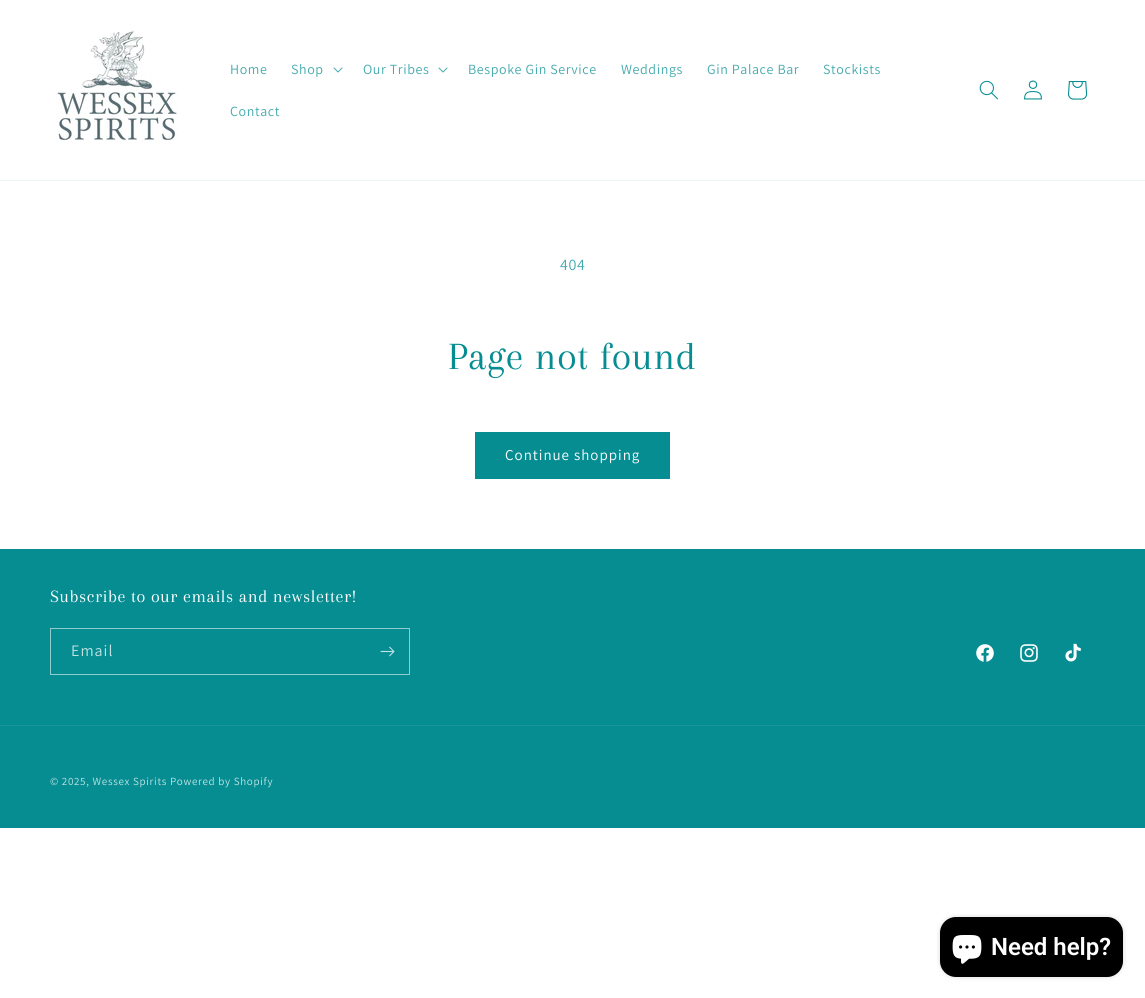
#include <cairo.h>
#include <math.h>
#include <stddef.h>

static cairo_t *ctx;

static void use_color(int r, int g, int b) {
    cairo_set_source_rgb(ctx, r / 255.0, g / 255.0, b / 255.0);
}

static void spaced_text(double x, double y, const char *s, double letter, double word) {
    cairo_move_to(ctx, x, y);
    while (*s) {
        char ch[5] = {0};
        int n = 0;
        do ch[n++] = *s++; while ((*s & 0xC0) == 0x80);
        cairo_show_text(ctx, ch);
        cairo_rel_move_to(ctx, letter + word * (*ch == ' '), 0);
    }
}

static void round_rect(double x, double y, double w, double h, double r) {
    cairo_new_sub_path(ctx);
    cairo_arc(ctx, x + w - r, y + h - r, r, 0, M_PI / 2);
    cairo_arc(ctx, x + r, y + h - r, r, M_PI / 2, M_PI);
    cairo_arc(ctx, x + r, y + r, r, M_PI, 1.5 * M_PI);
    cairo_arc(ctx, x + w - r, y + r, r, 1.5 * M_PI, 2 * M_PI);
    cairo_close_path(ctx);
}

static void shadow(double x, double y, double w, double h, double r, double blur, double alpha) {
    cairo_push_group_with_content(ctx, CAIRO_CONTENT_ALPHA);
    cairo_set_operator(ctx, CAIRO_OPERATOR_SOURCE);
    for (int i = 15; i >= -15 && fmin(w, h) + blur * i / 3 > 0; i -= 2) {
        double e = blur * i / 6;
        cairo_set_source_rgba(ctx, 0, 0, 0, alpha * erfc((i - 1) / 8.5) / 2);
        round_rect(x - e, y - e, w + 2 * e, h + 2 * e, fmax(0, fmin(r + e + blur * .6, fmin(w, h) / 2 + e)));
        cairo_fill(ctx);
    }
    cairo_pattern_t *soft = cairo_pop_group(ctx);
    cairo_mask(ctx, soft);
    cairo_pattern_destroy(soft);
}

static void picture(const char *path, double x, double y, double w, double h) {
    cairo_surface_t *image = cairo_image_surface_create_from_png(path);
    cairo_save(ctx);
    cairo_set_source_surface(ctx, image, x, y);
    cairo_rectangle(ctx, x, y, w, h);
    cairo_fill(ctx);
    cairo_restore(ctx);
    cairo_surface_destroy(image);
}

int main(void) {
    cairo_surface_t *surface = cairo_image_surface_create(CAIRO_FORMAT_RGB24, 1145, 998);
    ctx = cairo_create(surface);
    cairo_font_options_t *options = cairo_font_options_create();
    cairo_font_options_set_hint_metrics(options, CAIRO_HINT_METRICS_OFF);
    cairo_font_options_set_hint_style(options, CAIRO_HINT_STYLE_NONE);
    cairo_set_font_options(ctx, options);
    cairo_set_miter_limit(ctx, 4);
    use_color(255, 255, 255);
    cairo_paint(ctx);
    use_color(235, 246, 246);
    cairo_rectangle(ctx, 0, 180, 1145, 1);
    cairo_fill(ctx);
    picture("img1.png", 56, 30, 122, 110);
    cairo_select_font_face(ctx, "Assistant", CAIRO_FONT_SLANT_NORMAL, CAIRO_FONT_WEIGHT_NORMAL);
    cairo_set_font_size(ctx, 14);
    use_color(68, 170, 173);
    spaced_text(230, 74, "Home", 0.6, 0);
    spaced_text(291, 74, "Shop", 0.6, 0);
    picture("img2.png", 333, 67, 10, 6);
    spaced_text(363, 74, "Our Tribes", 0.6, 0);
    picture("img2.png", 438, 67, 10, 6);
    spaced_text(468, 74, "Bespoke Gin Service", 0.6, 0);
    spaced_text(621, 74, "Weddings", 0.6, 0);
    spaced_text(707, 74, "Gin Palace Bar", 0.6, 0);
    spaced_text(823, 74, "Stockists", 0.6, 0);
    spaced_text(230, 116, "Contact", 0.6, 0);
    picture("img3.png", 979, 80, 19, 20);
    picture("img4.png", 1024, 80, 18, 20);
    picture("img5.png", 1068, 81, 20, 19);
    cairo_set_font_size(ctx, 16);
    spaced_text(560, 270, "404", 0.6, 0);
    cairo_select_font_face(ctx, "Arapey", CAIRO_FONT_SLANT_NORMAL, CAIRO_FONT_WEIGHT_NORMAL);
    cairo_set_font_size(ctx, 40);
    use_color(6, 141, 146);
    spaced_text(448, 369, "Page not found", 0.6, 0);
    cairo_rectangle(ctx, 475, 432, 195, 47);
    cairo_fill(ctx);
    cairo_select_font_face(ctx, "Assistant", CAIRO_FONT_SLANT_NORMAL, CAIRO_FONT_WEIGHT_NORMAL);
    cairo_set_font_size(ctx, 15);
    use_color(255, 255, 255);
    spaced_text(505, 460, "Continue shopping", 1, 0);
    use_color(6, 141, 146);
    cairo_rectangle(ctx, 0, 549, 1145, 279);
    cairo_fill(ctx);
    cairo_select_font_face(ctx, "Arapey", CAIRO_FONT_SLANT_NORMAL, CAIRO_FONT_WEIGHT_NORMAL);
    cairo_set_font_size(ctx, 18);
    use_color(255, 255, 255);
    spaced_text(50, 602, "Subscribe to our emails and newsletter!", 0.6, 0);
    cairo_rectangle(ctx, 50.5, 628.5, 359, 46);
    use_color(143, 204, 206);
    cairo_set_line_width(ctx, 1);
    cairo_stroke(ctx);
    cairo_select_font_face(ctx, "Assistant", CAIRO_FONT_SLANT_NORMAL, CAIRO_FONT_WEIGHT_NORMAL);
    cairo_set_font_size(ctx, 16);
    use_color(193, 227, 228);
    spaced_text(71, 656, "Email", 1, 0);
    picture("img6.png", 380, 646, 15, 11);
    picture("img7.png", 976, 644, 18, 18);
    picture("img8.png", 1020, 644, 18, 18);
    picture("img9.png", 1065, 643, 16, 19);
    use_color(26, 150, 155);
    cairo_rectangle(ctx, 0, 725, 1145, 1);
    cairo_fill(ctx);
    cairo_set_font_size(ctx, 11);
    use_color(193, 227, 228);
    spaced_text(50, 785, "© 2025, Wessex Spirits Powered by Shopify", 0.7, 0);
    use_color(0, 0, 0);
    shadow(940, 917, 183, 60, 16, 2.5, 0.15);
    use_color(0, 0, 0);
    round_rect(940, 917, 183, 60, 16);
    cairo_fill(ctx);
    picture("img10.png", 952, 935, 30, 29);
    cairo_select_font_face(ctx, "Roboto SemiBold", CAIRO_FONT_SLANT_NORMAL, CAIRO_FONT_WEIGHT_NORMAL);
    cairo_set_font_size(ctx, 24);
    use_color(255, 255, 255);
    cairo_move_to(ctx, 991, 955);
    cairo_show_text(ctx, "Need help?");
    cairo_surface_write_to_png(surface, "result.png");
    cairo_font_options_destroy(options);
    cairo_destroy(ctx);
    cairo_surface_destroy(surface);
    return 0;
}
